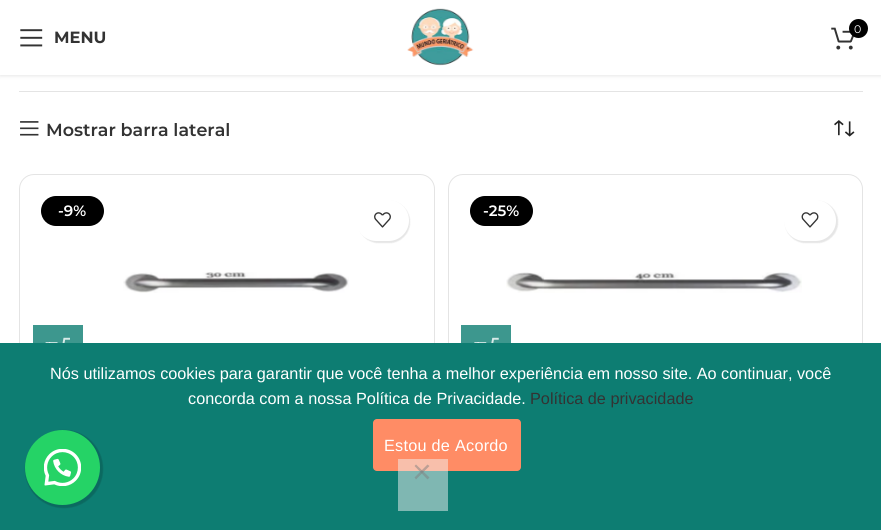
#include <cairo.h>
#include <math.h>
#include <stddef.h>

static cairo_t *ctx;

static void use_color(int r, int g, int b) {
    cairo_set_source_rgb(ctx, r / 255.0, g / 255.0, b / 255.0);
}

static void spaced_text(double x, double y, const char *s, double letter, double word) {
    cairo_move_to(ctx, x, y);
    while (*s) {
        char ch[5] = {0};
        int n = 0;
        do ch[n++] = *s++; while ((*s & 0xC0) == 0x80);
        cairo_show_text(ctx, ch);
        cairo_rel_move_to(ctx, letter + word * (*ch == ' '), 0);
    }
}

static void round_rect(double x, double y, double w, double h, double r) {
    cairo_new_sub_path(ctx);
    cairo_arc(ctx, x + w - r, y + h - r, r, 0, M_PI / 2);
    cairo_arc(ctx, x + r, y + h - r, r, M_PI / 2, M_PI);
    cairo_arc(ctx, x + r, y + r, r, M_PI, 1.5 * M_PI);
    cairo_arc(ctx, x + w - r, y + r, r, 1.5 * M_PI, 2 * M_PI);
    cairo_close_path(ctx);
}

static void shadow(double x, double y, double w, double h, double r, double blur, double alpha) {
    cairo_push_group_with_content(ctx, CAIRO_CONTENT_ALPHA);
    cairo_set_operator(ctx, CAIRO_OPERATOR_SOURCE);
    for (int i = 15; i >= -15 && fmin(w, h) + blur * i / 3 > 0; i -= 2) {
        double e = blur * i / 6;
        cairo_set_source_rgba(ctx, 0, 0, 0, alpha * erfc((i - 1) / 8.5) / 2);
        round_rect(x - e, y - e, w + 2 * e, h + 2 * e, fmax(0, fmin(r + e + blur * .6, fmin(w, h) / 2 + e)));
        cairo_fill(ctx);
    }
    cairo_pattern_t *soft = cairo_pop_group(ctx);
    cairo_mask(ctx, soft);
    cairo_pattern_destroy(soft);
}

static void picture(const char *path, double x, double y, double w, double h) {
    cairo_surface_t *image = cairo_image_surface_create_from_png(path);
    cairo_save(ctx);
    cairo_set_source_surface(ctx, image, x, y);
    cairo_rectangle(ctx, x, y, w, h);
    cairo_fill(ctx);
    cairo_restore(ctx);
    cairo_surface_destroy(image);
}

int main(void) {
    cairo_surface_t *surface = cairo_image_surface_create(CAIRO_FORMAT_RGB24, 881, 530);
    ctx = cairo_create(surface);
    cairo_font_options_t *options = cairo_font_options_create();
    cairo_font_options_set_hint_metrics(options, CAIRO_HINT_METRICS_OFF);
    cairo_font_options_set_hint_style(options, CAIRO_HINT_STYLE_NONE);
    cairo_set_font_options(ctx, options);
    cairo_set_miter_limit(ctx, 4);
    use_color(255, 255, 255);
    cairo_paint(ctx);
    use_color(0, 0, 0);
    shadow(0, 1, 881, 75, 0, 2, 0.1);
    use_color(255, 255, 255);
    cairo_rectangle(ctx, 0, 0, 881, 75);
    cairo_fill(ctx);
    picture("img1.png", 407, 8, 67, 58);
    picture("img2.png", 831, 27, 23, 23);
    use_color(0, 0, 0);
    cairo_arc(ctx, 858.5, 28.5, 9.5, 0, 2 * M_PI);
    cairo_fill(ctx);
    cairo_select_font_face(ctx, "Montserrat", CAIRO_FONT_SLANT_NORMAL, CAIRO_FONT_WEIGHT_NORMAL);
    cairo_set_font_size(ctx, 11);
    use_color(255, 255, 255);
    cairo_move_to(ctx, 854, 33);
    cairo_show_text(ctx, "0");
    picture("img3.png", 20, 29, 23, 18);
    cairo_select_font_face(ctx, "Montserrat", CAIRO_FONT_SLANT_NORMAL, CAIRO_FONT_WEIGHT_BOLD);
    cairo_set_font_size(ctx, 16.25);
    use_color(51, 51, 51);
    cairo_move_to(ctx, 54, 43);
    cairo_show_text(ctx, "MENU");
    use_color(228, 228, 228);
    cairo_rectangle(ctx, 19, 91, 844, 1);
    cairo_fill(ctx);
    picture("img4.png", 20, 121, 19, 15);
    cairo_select_font_face(ctx, "Montserrat SemiBold", CAIRO_FONT_SLANT_NORMAL, CAIRO_FONT_WEIGHT_NORMAL);
    cairo_set_font_size(ctx, 17.5);
    use_color(51, 51, 51);
    cairo_move_to(ctx, 46, 136);
    cairo_show_text(ctx, "Mostrar barra lateral");
    picture("img5.png", 834, 120, 21, 17);
    round_rect(19.5, 174.5, 415, 315, 14.5);
    use_color(228, 228, 228);
    cairo_set_line_width(ctx, 1);
    cairo_stroke(ctx);
    use_color(0, 0, 0);
    round_rect(41, 196, 63, 30, 15);
    cairo_fill(ctx);
    cairo_set_font_size(ctx, 15);
    use_color(255, 255, 255);
    cairo_move_to(ctx, 58, 216);
    cairo_show_text(ctx, "-9%");
    picture("img6.png", 123, 272, 226, 21);
    use_color(0, 0, 0);
    shadow(358, 201, 52, 42, 21, 0.5, 0.1);
    use_color(255, 255, 255);
    round_rect(356, 200, 53, 41, 20.5);
    cairo_fill(ctx);
    picture("img7.png", 374, 212, 17, 16);
    use_color(61, 151, 142);
    cairo_rectangle(ctx, 33, 325, 50, 18);
    cairo_fill(ctx);
    picture("img8.png", 45, 337, 25, 6);
    cairo_new_path(ctx);
    cairo_move_to(ctx, 50, 357.5);
    cairo_curve_to(ctx, 46, 353.5, 46, 346.5, 50, 342.5);
    use_color(255, 255, 255);
    cairo_set_line_width(ctx, 1.2);
    cairo_stroke(ctx);
    round_rect(448.5, 174.5, 414, 315, 14.5);
    use_color(228, 228, 228);
    cairo_set_line_width(ctx, 1);
    cairo_stroke(ctx);
    use_color(0, 0, 0);
    round_rect(470, 196, 63, 30, 15);
    cairo_fill(ctx);
    use_color(255, 255, 255);
    cairo_move_to(ctx, 483, 216);
    cairo_show_text(ctx, "-25%");
    picture("img9.png", 506, 272, 296, 21);
    use_color(0, 0, 0);
    shadow(785, 201, 53, 42, 21, 0.5, 0.1);
    use_color(255, 255, 255);
    round_rect(784, 200, 52, 41, 20.5);
    cairo_fill(ctx);
    picture("img10.png", 801, 212, 18, 16);
    use_color(61, 151, 142);
    cairo_rectangle(ctx, 461, 325, 50, 18);
    cairo_fill(ctx);
    picture("img11.png", 474, 337, 25, 6);
    cairo_new_path(ctx);
    cairo_move_to(ctx, 478.5, 357.5);
    cairo_curve_to(ctx, 474.5, 353.5, 474.5, 346.5, 478.5, 342.5);
    use_color(255, 255, 255);
    cairo_set_line_width(ctx, 1.2);
    cairo_stroke(ctx);
    use_color(13, 125, 114);
    cairo_rectangle(ctx, 0, 343, 881, 187);
    cairo_fill(ctx);
    cairo_select_font_face(ctx, "Liberation Sans", CAIRO_FONT_SLANT_NORMAL, CAIRO_FONT_WEIGHT_NORMAL);
    cairo_set_font_size(ctx, 16.25);
    use_color(255, 255, 255);
    cairo_move_to(ctx, 50, 379);
    cairo_show_text(ctx, "Nós utilizamos cookies para garantir que você tenha a melhor experiência em nosso site. Ao continuar, você");
    cairo_move_to(ctx, 188, 404);
    cairo_show_text(ctx, "concorda com a nossa Política de Privacidade.");
    use_color(51, 51, 51);
    cairo_move_to(ctx, 530, 404);
    cairo_show_text(ctx, "Política de privacidade");
    use_color(255, 140, 101);
    round_rect(373, 419, 148, 52, 4);
    cairo_fill(ctx);
    use_color(255, 255, 255);
    spaced_text(384, 451, "Estou de Acordo", 0.25, 0);
    cairo_set_source_rgba(ctx, 0.953, 0.953, 0.953, 0.5);
    cairo_rectangle(ctx, 398, 459, 50, 52);
    cairo_fill(ctx);
    cairo_set_source_rgba(ctx, 0.502, 0.502, 0.502, 0.5);
    cairo_new_path(ctx);
    cairo_move_to(ctx, 427.5, 464.5);
    cairo_line_to(ctx, 429.5, 466);
    cairo_line_to(ctx, 416, 479.5);
    cairo_line_to(ctx, 414.5, 477.5);
    cairo_close_path(ctx);
    cairo_fill(ctx);
    cairo_new_path(ctx);
    cairo_move_to(ctx, 414.5, 466);
    cairo_line_to(ctx, 416, 464.5);
    cairo_line_to(ctx, 429.5, 477.5);
    cairo_line_to(ctx, 427.5, 479.5);
    cairo_close_path(ctx);
    cairo_fill(ctx);
    use_color(0, 0, 0);
    shadow(25, 430, 78, 78, 39, 0.5, 0.16);
    use_color(37, 211, 102);
    cairo_arc(ctx, 62.5, 467.5, 37.5, 0, 2 * M_PI);
    cairo_fill(ctx);
    picture("img12.png", 44, 449, 37, 37);
    cairo_surface_write_to_png(surface, "result.png");
    cairo_font_options_destroy(options);
    cairo_destroy(ctx);
    cairo_surface_destroy(surface);
    return 0;
}
